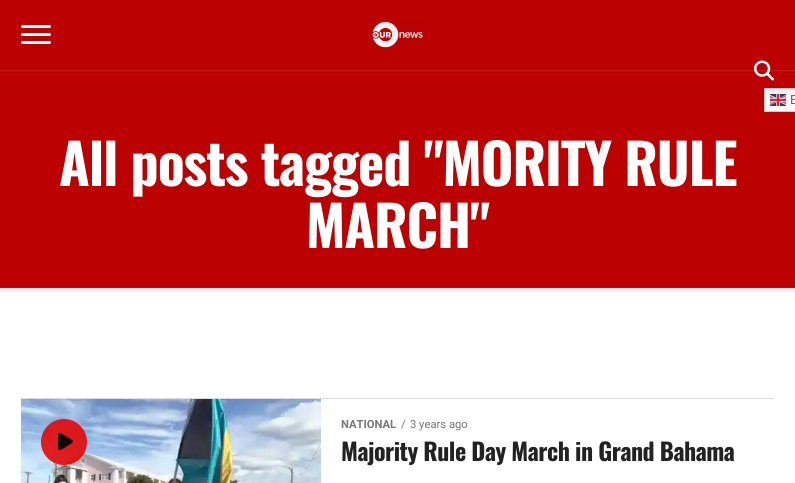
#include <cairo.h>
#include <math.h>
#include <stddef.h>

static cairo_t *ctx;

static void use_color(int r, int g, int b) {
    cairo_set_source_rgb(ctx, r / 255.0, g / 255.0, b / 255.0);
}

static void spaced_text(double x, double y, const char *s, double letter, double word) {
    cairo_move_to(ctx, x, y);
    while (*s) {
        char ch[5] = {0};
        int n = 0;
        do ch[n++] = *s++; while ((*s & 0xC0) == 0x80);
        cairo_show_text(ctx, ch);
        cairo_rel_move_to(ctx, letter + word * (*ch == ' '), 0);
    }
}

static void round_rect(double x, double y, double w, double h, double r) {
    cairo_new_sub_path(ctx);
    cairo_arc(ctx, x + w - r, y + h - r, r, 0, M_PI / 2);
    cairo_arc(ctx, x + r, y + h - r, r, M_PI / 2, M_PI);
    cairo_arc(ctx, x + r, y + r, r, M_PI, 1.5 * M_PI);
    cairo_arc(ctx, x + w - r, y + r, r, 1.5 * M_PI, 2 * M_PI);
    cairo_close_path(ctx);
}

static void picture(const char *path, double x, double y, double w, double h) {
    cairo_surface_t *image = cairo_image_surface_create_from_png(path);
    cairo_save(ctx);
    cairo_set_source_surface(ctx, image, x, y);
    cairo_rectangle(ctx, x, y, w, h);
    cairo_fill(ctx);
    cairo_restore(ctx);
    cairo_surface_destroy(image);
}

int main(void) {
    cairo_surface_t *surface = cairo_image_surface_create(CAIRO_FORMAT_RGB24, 795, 483);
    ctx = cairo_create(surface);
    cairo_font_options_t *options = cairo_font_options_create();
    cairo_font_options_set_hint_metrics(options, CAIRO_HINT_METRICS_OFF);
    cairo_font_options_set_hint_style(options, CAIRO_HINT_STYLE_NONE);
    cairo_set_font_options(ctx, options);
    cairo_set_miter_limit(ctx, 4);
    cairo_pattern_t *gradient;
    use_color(255, 255, 255);
    cairo_paint(ctx);
    use_color(187, 1, 2);
    cairo_rectangle(ctx, 0, 0, 795, 70);
    cairo_fill(ctx);
    use_color(255, 255, 255);
    round_rect(21, 25, 30, 3, 1.5);
    cairo_fill(ctx);
    round_rect(21, 33, 30, 3, 1.5);
    cairo_fill(ctx);
    round_rect(21, 41, 30, 3, 1.5);
    cairo_fill(ctx);
    picture("img1.png", 372, 21, 51, 27);
    picture("img4.png", 0, 70, 795, 223);
    picture("img2.png", 754, 60, 20, 21);
    gradient = cairo_pattern_create_linear(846, 88, 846, 112);
    cairo_pattern_add_color_stop_rgba(gradient, 0, 0.937, 0.937, 0.937, 1);
    cairo_pattern_add_color_stop_rgba(gradient, 0.7, 1, 1, 1, 1);
    cairo_set_source(ctx, gradient);
    cairo_pattern_destroy(gradient);
    cairo_rectangle(ctx, 765, 89, 30, 22);
    cairo_fill(ctx);
    cairo_rectangle(ctx, 764.5, 88.5, 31, 23);
    use_color(204, 204, 204);
    cairo_set_line_width(ctx, 1);
    cairo_stroke(ctx);
    picture("img3.png", 770, 94, 16, 12);
    cairo_select_font_face(ctx, "Liberation Sans", CAIRO_FONT_SLANT_NORMAL, CAIRO_FONT_WEIGHT_NORMAL);
    cairo_set_font_size(ctx, 13);
    use_color(102, 102, 102);
    cairo_move_to(ctx, 790, 104);
    cairo_show_text(ctx, "E");
    cairo_select_font_face(ctx, "Oswald", CAIRO_FONT_SLANT_NORMAL, CAIRO_FONT_WEIGHT_BOLD);
    cairo_set_font_size(ctx, 56);
    use_color(255, 255, 255);
    spaced_text(59, 186, "All posts tagged \"MORITY RULE", -1.1, 0);
    spaced_text(306, 248, "MARCH\"", -1.1, 0);
    use_color(221, 221, 221);
    cairo_rectangle(ctx, 21, 398, 753, 1);
    cairo_fill(ctx);
    picture("img5.png", 21, 399, 300, 84);
    cairo_set_source_rgba(ctx, 0.886, 0.035, 0.035, 0.9);
    cairo_arc(ctx, 64, 442, 23, 0, 2 * M_PI);
    cairo_fill(ctx);
    picture("img6.png", 58, 432, 15, 19);
    cairo_select_font_face(ctx, "Roboto", CAIRO_FONT_SLANT_NORMAL, CAIRO_FONT_WEIGHT_BOLD);
    cairo_set_font_size(ctx, 11.25);
    use_color(119, 119, 119);
    cairo_move_to(ctx, 341, 428);
    cairo_show_text(ctx, "NATIONAL");
    cairo_select_font_face(ctx, "Roboto", CAIRO_FONT_SLANT_NORMAL, CAIRO_FONT_WEIGHT_NORMAL);
    cairo_move_to(ctx, 401, 428);
    cairo_show_text(ctx, "/");
    cairo_move_to(ctx, 410, 428);
    cairo_show_text(ctx, "3 years ago");
    cairo_select_font_face(ctx, "Oswald", CAIRO_FONT_SLANT_NORMAL, CAIRO_FONT_WEIGHT_BOLD);
    cairo_set_font_size(ctx, 24);
    use_color(34, 34, 34);
    spaced_text(341, 461, "Majority Rule Day March in Grand Bahama", -0.5, 0);
    cairo_surface_write_to_png(surface, "result.png");
    cairo_font_options_destroy(options);
    cairo_destroy(ctx);
    cairo_surface_destroy(surface);
    return 0;
}
